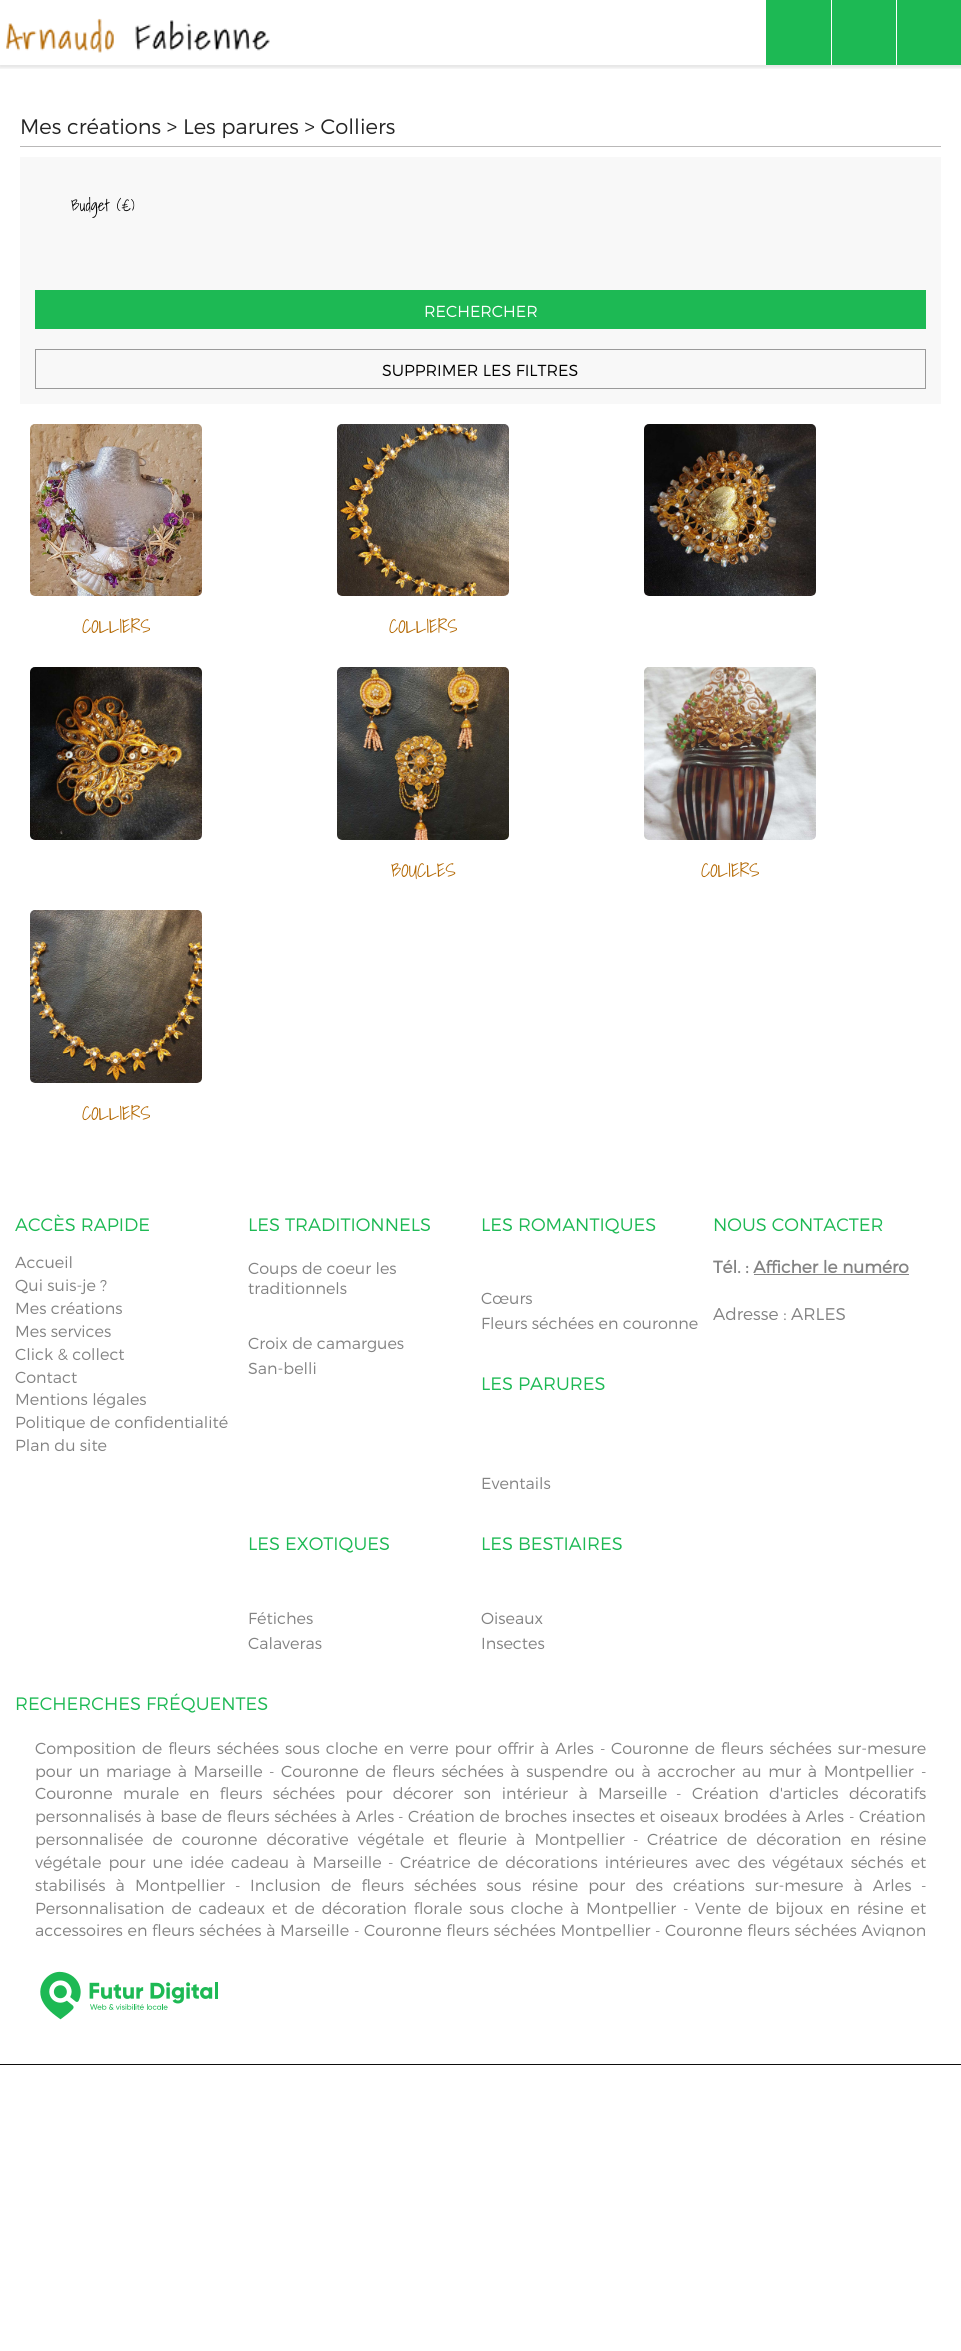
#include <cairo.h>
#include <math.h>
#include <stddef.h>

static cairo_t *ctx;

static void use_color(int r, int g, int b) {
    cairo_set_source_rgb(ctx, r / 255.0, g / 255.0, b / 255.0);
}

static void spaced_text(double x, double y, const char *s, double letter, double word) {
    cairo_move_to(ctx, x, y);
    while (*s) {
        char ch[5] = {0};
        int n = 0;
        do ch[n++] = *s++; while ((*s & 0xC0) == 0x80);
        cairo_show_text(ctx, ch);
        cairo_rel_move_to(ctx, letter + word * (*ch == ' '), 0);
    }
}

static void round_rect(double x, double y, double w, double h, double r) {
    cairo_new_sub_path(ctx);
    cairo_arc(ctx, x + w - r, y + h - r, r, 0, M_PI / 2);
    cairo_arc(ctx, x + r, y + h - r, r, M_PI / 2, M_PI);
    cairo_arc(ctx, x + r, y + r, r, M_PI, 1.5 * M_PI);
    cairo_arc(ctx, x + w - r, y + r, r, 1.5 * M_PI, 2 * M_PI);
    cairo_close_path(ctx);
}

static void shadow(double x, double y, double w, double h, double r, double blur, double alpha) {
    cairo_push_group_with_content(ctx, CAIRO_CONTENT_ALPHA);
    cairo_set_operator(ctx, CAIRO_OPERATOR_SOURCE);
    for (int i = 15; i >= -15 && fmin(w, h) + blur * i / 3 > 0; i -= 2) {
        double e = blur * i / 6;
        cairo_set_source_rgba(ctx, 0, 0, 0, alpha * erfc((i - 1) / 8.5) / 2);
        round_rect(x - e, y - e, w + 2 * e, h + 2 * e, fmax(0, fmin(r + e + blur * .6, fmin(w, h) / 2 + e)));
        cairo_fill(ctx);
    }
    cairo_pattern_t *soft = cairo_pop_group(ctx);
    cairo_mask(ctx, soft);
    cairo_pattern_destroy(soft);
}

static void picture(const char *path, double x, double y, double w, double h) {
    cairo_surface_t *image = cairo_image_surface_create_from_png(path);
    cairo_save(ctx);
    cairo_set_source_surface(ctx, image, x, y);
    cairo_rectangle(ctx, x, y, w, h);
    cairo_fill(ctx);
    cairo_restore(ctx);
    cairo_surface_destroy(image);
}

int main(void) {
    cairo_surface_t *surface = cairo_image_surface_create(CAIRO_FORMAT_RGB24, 961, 2351);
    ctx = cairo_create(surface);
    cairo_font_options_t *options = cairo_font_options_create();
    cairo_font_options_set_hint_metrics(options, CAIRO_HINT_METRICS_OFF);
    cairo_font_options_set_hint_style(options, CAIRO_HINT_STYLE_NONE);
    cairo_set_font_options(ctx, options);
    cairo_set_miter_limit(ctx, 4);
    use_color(255, 255, 255);
    cairo_paint(ctx);
    cairo_save(ctx);
    cairo_rectangle(ctx, 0, 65, 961, 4);
    cairo_clip(ctx);
    use_color(0, 0, 0);
    shadow(-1, 1, 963, 67, 0, 1.5, 0.1);
    cairo_restore(ctx);
    picture("img1.png", 6, 18, 264, 35);
    use_color(29, 185, 84);
    cairo_rectangle(ctx, 766, 0, 65, 65);
    cairo_fill(ctx);
    cairo_rectangle(ctx, 832, 0, 64, 65);
    cairo_fill(ctx);
    cairo_rectangle(ctx, 897, 0, 64, 65);
    cairo_fill(ctx);
    use_color(185, 184, 184);
    cairo_rectangle(ctx, 20, 146, 921, 1);
    cairo_fill(ctx);
    cairo_select_font_face(ctx, "Montserrat Light", CAIRO_FONT_SLANT_NORMAL, CAIRO_FONT_WEIGHT_NORMAL);
    cairo_set_font_size(ctx, 21);
    use_color(37, 37, 37);
    cairo_move_to(ctx, 20, 134);
    cairo_show_text(ctx, "Mes créations > Les parures > Colliers");
    use_color(248, 248, 248);
    cairo_rectangle(ctx, 20, 157, 921, 247);
    cairo_fill(ctx);
    cairo_select_font_face(ctx, "Shadows Into Light Light", CAIRO_FONT_SLANT_NORMAL, CAIRO_FONT_WEIGHT_NORMAL);
    cairo_set_font_size(ctx, 16);
    use_color(0, 0, 0);
    cairo_move_to(ctx, 71, 211);
    cairo_show_text(ctx, "Budget (€)");
    use_color(29, 185, 84);
    cairo_rectangle(ctx, 35, 290, 891, 39);
    cairo_fill(ctx);
    cairo_select_font_face(ctx, "Montserrat Light", CAIRO_FONT_SLANT_NORMAL, CAIRO_FONT_WEIGHT_NORMAL);
    use_color(255, 255, 255);
    cairo_move_to(ctx, 424, 317);
    cairo_show_text(ctx, "RECHERCHER");
    cairo_rectangle(ctx, 35.5, 349.5, 890, 39);
    use_color(154, 154, 154);
    cairo_set_line_width(ctx, 1);
    cairo_stroke(ctx);
    use_color(0, 0, 0);
    cairo_move_to(ctx, 382, 376);
    cairo_show_text(ctx, "SUPPRIMER LES FILTRES");
    picture("img2.png", 644, 424, 172, 172);
    picture("img3.png", 30, 424, 172, 172);
    cairo_select_font_face(ctx, "Shadows Into Light Light", CAIRO_FONT_SLANT_NORMAL, CAIRO_FONT_WEIGHT_NORMAL);
    cairo_set_font_size(ctx, 19);
    use_color(179, 103, 0);
    cairo_move_to(ctx, 82, 633);
    cairo_show_text(ctx, "COLLIERS");
    picture("img4.png", 337, 424, 172, 172);
    cairo_move_to(ctx, 389, 633);
    cairo_show_text(ctx, "COLLIERS");
    picture("img5.png", 30, 667, 172, 173);
    picture("img6.png", 337, 667, 172, 173);
    cairo_move_to(ctx, 391, 877);
    cairo_show_text(ctx, "BOUCLES");
    picture("img7.png", 644, 667, 172, 173);
    cairo_move_to(ctx, 701, 877);
    cairo_show_text(ctx, "COLIERS");
    picture("img8.png", 30, 910, 172, 173);
    cairo_move_to(ctx, 82, 1120);
    cairo_show_text(ctx, "COLLIERS");
    cairo_select_font_face(ctx, "Montserrat Light", CAIRO_FONT_SLANT_NORMAL, CAIRO_FONT_WEIGHT_NORMAL);
    cairo_set_font_size(ctx, 18);
    use_color(29, 185, 84);
    cairo_move_to(ctx, 15, 1231);
    cairo_show_text(ctx, "ACCÈS RAPIDE");
    cairo_set_font_size(ctx, 16);
    use_color(131, 131, 131);
    cairo_move_to(ctx, 15, 1268);
    cairo_show_text(ctx, "Accueil");
    cairo_move_to(ctx, 15, 1291);
    cairo_show_text(ctx, "Qui suis-je ?");
    cairo_move_to(ctx, 15, 1314);
    cairo_show_text(ctx, "Mes créations");
    cairo_move_to(ctx, 15, 1337);
    cairo_show_text(ctx, "Mes services");
    cairo_move_to(ctx, 15, 1360);
    cairo_show_text(ctx, "Click & collect");
    cairo_move_to(ctx, 15, 1383);
    cairo_show_text(ctx, "Contact");
    cairo_move_to(ctx, 15, 1405);
    cairo_show_text(ctx, "Mentions légales");
    cairo_move_to(ctx, 15, 1428);
    cairo_show_text(ctx, "Politique de confidentialité");
    cairo_move_to(ctx, 15, 1451);
    cairo_show_text(ctx, "Plan du site");
    cairo_set_font_size(ctx, 18);
    use_color(29, 185, 84);
    cairo_move_to(ctx, 248, 1231);
    cairo_show_text(ctx, "LES TRADITIONNELS");
    cairo_set_font_size(ctx, 16);
    use_color(131, 131, 131);
    cairo_move_to(ctx, 248, 1274);
    cairo_show_text(ctx, "Coups de coeur les");
    cairo_move_to(ctx, 248, 1294);
    cairo_show_text(ctx, "traditionnels");
    cairo_move_to(ctx, 248, 1349);
    cairo_show_text(ctx, "Croix de camargues");
    cairo_move_to(ctx, 248, 1374);
    cairo_show_text(ctx, "San-belli");
    cairo_set_font_size(ctx, 18);
    use_color(29, 185, 84);
    cairo_move_to(ctx, 481, 1231);
    cairo_show_text(ctx, "LES ROMANTIQUES");
    cairo_set_font_size(ctx, 16);
    use_color(131, 131, 131);
    cairo_move_to(ctx, 481, 1304);
    cairo_show_text(ctx, "Cœurs");
    cairo_move_to(ctx, 481, 1329);
    cairo_show_text(ctx, "Fleurs séchées en couronne");
    cairo_set_font_size(ctx, 18);
    use_color(29, 185, 84);
    cairo_move_to(ctx, 481, 1390);
    cairo_show_text(ctx, "LES PARURES");
    cairo_set_font_size(ctx, 16);
    use_color(131, 131, 131);
    cairo_move_to(ctx, 481, 1489);
    cairo_show_text(ctx, "Eventails");
    cairo_set_font_size(ctx, 18);
    use_color(29, 185, 84);
    cairo_move_to(ctx, 248, 1550);
    cairo_show_text(ctx, "LES EXOTIQUES");
    cairo_set_font_size(ctx, 16);
    use_color(131, 131, 131);
    cairo_move_to(ctx, 248, 1624);
    cairo_show_text(ctx, "Fétiches");
    cairo_move_to(ctx, 248, 1649);
    cairo_show_text(ctx, "Calaveras");
    cairo_set_font_size(ctx, 18);
    use_color(29, 185, 84);
    cairo_move_to(ctx, 481, 1550);
    cairo_show_text(ctx, "LES BESTIAIRES");
    cairo_set_font_size(ctx, 16);
    use_color(131, 131, 131);
    cairo_move_to(ctx, 481, 1624);
    cairo_show_text(ctx, "Oiseaux");
    cairo_move_to(ctx, 481, 1649);
    cairo_show_text(ctx, "Insectes");
    cairo_set_font_size(ctx, 18);
    use_color(29, 185, 84);
    cairo_move_to(ctx, 713, 1231);
    cairo_show_text(ctx, "NOUS CONTACTER");
    cairo_select_font_face(ctx, "Montserrat", CAIRO_FONT_SLANT_NORMAL, CAIRO_FONT_WEIGHT_BOLD);
    cairo_set_font_size(ctx, 17);
    use_color(131, 131, 131);
    cairo_move_to(ctx, 713, 1273);
    cairo_show_text(ctx, "Tél. : Afficher le numéro");
    cairo_rectangle(ctx, 754, 1274, 155, 1);
    cairo_fill(ctx);
    cairo_select_font_face(ctx, "Montserrat Light", CAIRO_FONT_SLANT_NORMAL, CAIRO_FONT_WEIGHT_NORMAL);
    cairo_move_to(ctx, 713, 1320);
    cairo_show_text(ctx, "Adresse : ARLES");
    cairo_set_font_size(ctx, 18);
    use_color(29, 185, 84);
    cairo_move_to(ctx, 15, 1710);
    cairo_show_text(ctx, "RECHERCHES FRÉQUENTES");
    cairo_set_font_size(ctx, 16);
    use_color(131, 131, 131);
    spaced_text(35, 1754, "Composition de fleurs séchées sous cloche en verre pour offrir à Arles", 0, 1.6);
    cairo_set_font_size(ctx, 15);
    cairo_move_to(ctx, 600, 1754);
    cairo_show_text(ctx, "-");
    cairo_set_font_size(ctx, 16);
    spaced_text(611, 1754, "Couronne de fleurs séchées sur-mesure", 0, 1.6);
    spaced_text(35, 1777, "pour un mariage à Marseille", 0, 2.25);
    cairo_set_font_size(ctx, 15);
    cairo_move_to(ctx, 269, 1777);
    cairo_show_text(ctx, "-");
    cairo_set_font_size(ctx, 16);
    spaced_text(281, 1777, "Couronne de fleurs séchées à suspendre ou à accrocher au mur à Montpellier", 0, 2.25);
    cairo_set_font_size(ctx, 15);
    cairo_move_to(ctx, 921, 1777);
    cairo_show_text(ctx, "-");
    cairo_set_font_size(ctx, 16);
    spaced_text(35, 1799, "Couronne murale en fleurs séchées pour décorer son intérieur à Marseille", 0, 6);
    cairo_set_font_size(ctx, 15);
    cairo_move_to(ctx, 676, 1799);
    cairo_show_text(ctx, "-");
    cairo_set_font_size(ctx, 16);
    spaced_text(692, 1799, "Création d'articles décoratifs", 0, 6);
    spaced_text(35, 1822, "personnalisés à base de fleurs séchées à Arles", 0, 0.5);
    cairo_set_font_size(ctx, 15);
    cairo_move_to(ctx, 398, 1822);
    cairo_show_text(ctx, "-");
    cairo_set_font_size(ctx, 16);
    spaced_text(408, 1822, "Création de broches insectes et oiseaux brodées à Arles", 0, 0.25);
    cairo_set_font_size(ctx, 15);
    cairo_move_to(ctx, 849, 1822);
    cairo_show_text(ctx, "-");
    cairo_set_font_size(ctx, 16);
    cairo_move_to(ctx, 859, 1822);
    cairo_show_text(ctx, "Création");
    spaced_text(35, 1845, "personnalisée de couronne décorative végétale et fleurie à Montpellier", 0, 4.75);
    cairo_set_font_size(ctx, 15);
    cairo_move_to(ctx, 633, 1845);
    cairo_show_text(ctx, "-");
    cairo_set_font_size(ctx, 16);
    spaced_text(647, 1845, "Créatrice de décoration en résine", 0, 4.75);
    spaced_text(35, 1868, "végétale pour une idée cadeau à Marseille", 0, 2.75);
    cairo_set_font_size(ctx, 15);
    cairo_move_to(ctx, 388, 1868);
    cairo_show_text(ctx, "-");
    cairo_set_font_size(ctx, 16);
    spaced_text(400, 1868, "Créatrice de décorations intérieures avec des végétaux séchés et", 0, 2.75);
    spaced_text(35, 1891, "stabilisés à Montpellier", 0, 5.75);
    cairo_set_font_size(ctx, 15);
    cairo_move_to(ctx, 235, 1891);
    cairo_show_text(ctx, "-");
    cairo_set_font_size(ctx, 16);
    spaced_text(250, 1891, "Inclusion de fleurs séchées sous résine pour des créations sur-mesure à Arles", 0, 5.75);
    cairo_set_font_size(ctx, 15);
    cairo_move_to(ctx, 921, 1891);
    cairo_show_text(ctx, "-");
    cairo_set_font_size(ctx, 16);
    spaced_text(35, 1914, "Personnalisation de cadeaux et de décoration florale sous cloche à Montpellier", 0, 2.5);
    cairo_set_font_size(ctx, 15);
    cairo_move_to(ctx, 683, 1914);
    cairo_show_text(ctx, "-");
    cairo_set_font_size(ctx, 16);
    spaced_text(695, 1914, "Vente de bijoux en résine et", 0, 2.5);
    spaced_text(35, 1936, "accessoires en fleurs séchées à Marseille", 0, 0.25);
    cairo_set_font_size(ctx, 15);
    cairo_move_to(ctx, 354, 1936);
    cairo_show_text(ctx, "-");
    cairo_save(ctx);
    cairo_rectangle(ctx, 15, 1737, 931, 200);
    cairo_clip(ctx);
    cairo_set_font_size(ctx, 16);
    spaced_text(364, 1936, "Couronne fleurs séchées Montpellier", 0, 0.25);
    cairo_restore(ctx);
    cairo_move_to(ctx, 655, 1936);
    cairo_show_text(ctx, "-");
    cairo_save(ctx);
    cairo_rectangle(ctx, 15, 1737, 931, 200);
    cairo_clip(ctx);
    cairo_set_font_size(ctx, 16);
    spaced_text(665, 1936, "Couronne fleurs séchées Avignon", 0, 0.25);
    cairo_restore(ctx);
    picture("img9.png", 40, 1971, 178, 49);
    use_color(14, 13, 13);
    cairo_rectangle(ctx, 0, 2064, 961, 1);
    cairo_fill(ctx);
    cairo_surface_write_to_png(surface, "result.png");
    cairo_font_options_destroy(options);
    cairo_destroy(ctx);
    cairo_surface_destroy(surface);
    return 0;
}
